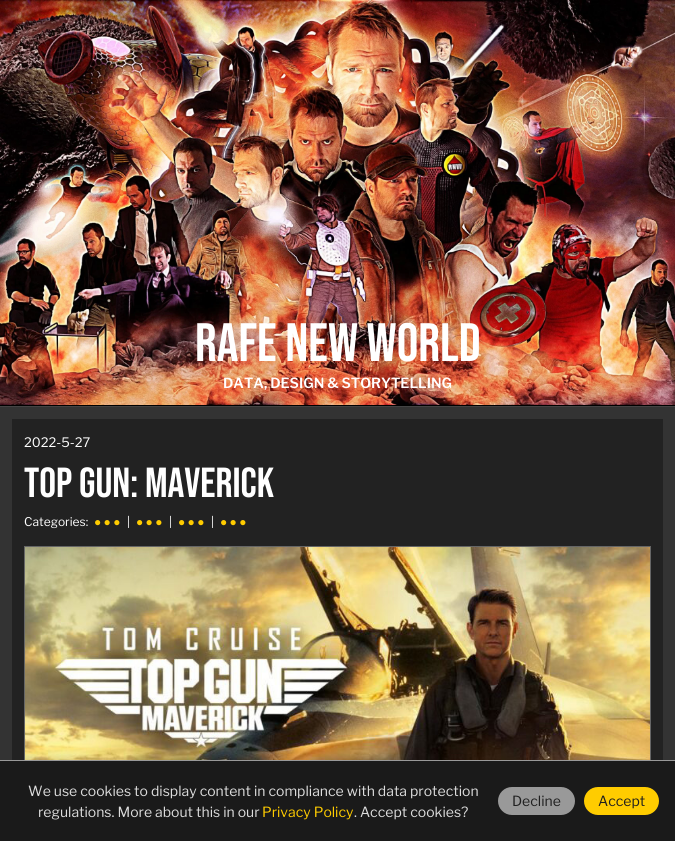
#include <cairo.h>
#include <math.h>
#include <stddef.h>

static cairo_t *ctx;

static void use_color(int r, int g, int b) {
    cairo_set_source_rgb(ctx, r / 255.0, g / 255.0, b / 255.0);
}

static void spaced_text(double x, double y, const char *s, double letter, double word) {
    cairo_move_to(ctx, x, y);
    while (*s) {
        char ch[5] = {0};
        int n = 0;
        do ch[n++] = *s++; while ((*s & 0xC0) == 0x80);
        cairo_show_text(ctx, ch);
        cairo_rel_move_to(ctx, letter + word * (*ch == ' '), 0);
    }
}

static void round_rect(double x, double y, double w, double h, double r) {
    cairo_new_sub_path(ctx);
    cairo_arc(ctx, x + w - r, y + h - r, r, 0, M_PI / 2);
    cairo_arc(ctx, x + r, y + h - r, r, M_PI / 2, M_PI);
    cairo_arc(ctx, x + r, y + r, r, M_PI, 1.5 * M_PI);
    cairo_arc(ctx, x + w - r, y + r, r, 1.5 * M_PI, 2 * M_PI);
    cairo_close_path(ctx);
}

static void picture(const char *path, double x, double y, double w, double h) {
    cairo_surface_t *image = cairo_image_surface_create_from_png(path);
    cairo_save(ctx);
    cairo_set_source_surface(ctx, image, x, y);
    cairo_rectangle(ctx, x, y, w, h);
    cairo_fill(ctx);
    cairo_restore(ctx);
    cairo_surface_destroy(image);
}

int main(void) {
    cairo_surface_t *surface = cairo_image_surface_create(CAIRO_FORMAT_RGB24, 675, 841);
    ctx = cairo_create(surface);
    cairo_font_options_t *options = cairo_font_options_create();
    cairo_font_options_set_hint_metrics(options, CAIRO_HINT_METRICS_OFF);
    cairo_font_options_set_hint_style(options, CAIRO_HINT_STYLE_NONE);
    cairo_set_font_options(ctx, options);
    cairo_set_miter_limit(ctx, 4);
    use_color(51, 51, 51);
    cairo_paint(ctx);
    picture("img1.png", 0, 0, 675, 405);
    cairo_select_font_face(ctx, "Bebas Neue", CAIRO_FONT_SLANT_NORMAL, CAIRO_FONT_WEIGHT_NORMAL);
    cairo_set_font_size(ctx, 54);
    use_color(255, 255, 255);
    cairo_move_to(ctx, 195, 361);
    cairo_show_text(ctx, "RAFE NEW WORLD");
    cairo_select_font_face(ctx, "Libre Franklin SemiBold", CAIRO_FONT_SLANT_NORMAL, CAIRO_FONT_WEIGHT_NORMAL);
    cairo_set_font_size(ctx, 14);
    cairo_move_to(ctx, 223, 388);
    cairo_show_text(ctx, "DATA, DESIGN & STORYTELLING");
    use_color(0, 0, 0);
    cairo_rectangle(ctx, 0, 405, 675, 1);
    cairo_fill(ctx);
    use_color(68, 68, 68);
    cairo_rectangle(ctx, 0, 406, 675, 1);
    cairo_fill(ctx);
    use_color(34, 34, 34);
    cairo_rectangle(ctx, 12, 419, 651, 341);
    cairo_fill(ctx);
    cairo_select_font_face(ctx, "Libre Franklin", CAIRO_FONT_SLANT_NORMAL, CAIRO_FONT_WEIGHT_NORMAL);
    cairo_set_font_size(ctx, 13);
    use_color(255, 255, 255);
    cairo_move_to(ctx, 24, 447);
    cairo_show_text(ctx, "2022-5-27");
    cairo_select_font_face(ctx, "Bebas Neue", CAIRO_FONT_SLANT_NORMAL, CAIRO_FONT_WEIGHT_NORMAL);
    cairo_set_font_size(ctx, 42);
    cairo_move_to(ctx, 24, 497);
    cairo_show_text(ctx, "TOP GUN: MAVERICK");
    cairo_select_font_face(ctx, "Libre Franklin", CAIRO_FONT_SLANT_NORMAL, CAIRO_FONT_WEIGHT_NORMAL);
    cairo_set_font_size(ctx, 12);
    cairo_move_to(ctx, 24, 526);
    cairo_show_text(ctx, "Categories:");
    cairo_select_font_face(ctx, "Liberation Sans", CAIRO_FONT_SLANT_NORMAL, CAIRO_FONT_WEIGHT_NORMAL);
    use_color(255, 204, 0);
    spaced_text(94, 526, "● ● ●", 0, -1);
    cairo_select_font_face(ctx, "Libre Franklin", CAIRO_FONT_SLANT_NORMAL, CAIRO_FONT_WEIGHT_NORMAL);
    use_color(255, 255, 255);
    cairo_move_to(ctx, 127, 526);
    cairo_show_text(ctx, "|");
    cairo_select_font_face(ctx, "Liberation Sans", CAIRO_FONT_SLANT_NORMAL, CAIRO_FONT_WEIGHT_NORMAL);
    use_color(255, 204, 0);
    spaced_text(136, 526, "● ● ●", 0, -1);
    cairo_select_font_face(ctx, "Libre Franklin", CAIRO_FONT_SLANT_NORMAL, CAIRO_FONT_WEIGHT_NORMAL);
    use_color(255, 255, 255);
    cairo_move_to(ctx, 169, 526);
    cairo_show_text(ctx, "|");
    cairo_select_font_face(ctx, "Liberation Sans", CAIRO_FONT_SLANT_NORMAL, CAIRO_FONT_WEIGHT_NORMAL);
    use_color(255, 204, 0);
    spaced_text(178, 526, "● ● ●", 0, -1);
    cairo_select_font_face(ctx, "Libre Franklin", CAIRO_FONT_SLANT_NORMAL, CAIRO_FONT_WEIGHT_NORMAL);
    use_color(255, 255, 255);
    cairo_move_to(ctx, 211, 526);
    cairo_show_text(ctx, "|");
    cairo_select_font_face(ctx, "Liberation Sans", CAIRO_FONT_SLANT_NORMAL, CAIRO_FONT_WEIGHT_NORMAL);
    use_color(255, 204, 0);
    spaced_text(220, 526, "● ● ●", 0, -1);
    cairo_rectangle(ctx, 24.5, 546.5, 626, 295);
    use_color(102, 102, 102);
    cairo_set_line_width(ctx, 1);
    cairo_stroke(ctx);
    picture("img2.png", 25, 547, 625, 213);
    use_color(26, 26, 26);
    cairo_rectangle(ctx, 0, 761, 675, 80);
    cairo_fill(ctx);
    use_color(153, 153, 153);
    cairo_rectangle(ctx, 0, 760, 675, 1);
    cairo_fill(ctx);
    cairo_select_font_face(ctx, "Libre Franklin", CAIRO_FONT_SLANT_NORMAL, CAIRO_FONT_WEIGHT_NORMAL);
    cairo_set_font_size(ctx, 14);
    use_color(221, 221, 221);
    cairo_move_to(ctx, 28, 796);
    cairo_show_text(ctx, "We use cookies to display content in compliance with data protection");
    cairo_move_to(ctx, 38, 817);
    cairo_show_text(ctx, "regulations. More about this in our");
    use_color(255, 204, 0);
    cairo_move_to(ctx, 262, 817);
    cairo_show_text(ctx, "Privacy Policy");
    use_color(221, 221, 221);
    cairo_move_to(ctx, 354, 817);
    cairo_show_text(ctx, ". Accept cookies?");
    use_color(153, 153, 153);
    round_rect(498, 787, 77, 28, 14);
    cairo_fill(ctx);
    use_color(31, 31, 31);
    cairo_move_to(ctx, 512, 806);
    cairo_show_text(ctx, "Decline");
    use_color(255, 204, 0);
    round_rect(584, 787, 75, 28, 14);
    cairo_fill(ctx);
    use_color(31, 31, 31);
    cairo_move_to(ctx, 598, 806);
    cairo_show_text(ctx, "Accept");
    cairo_surface_write_to_png(surface, "result.png");
    cairo_font_options_destroy(options);
    cairo_destroy(ctx);
    cairo_surface_destroy(surface);
    return 0;
}
